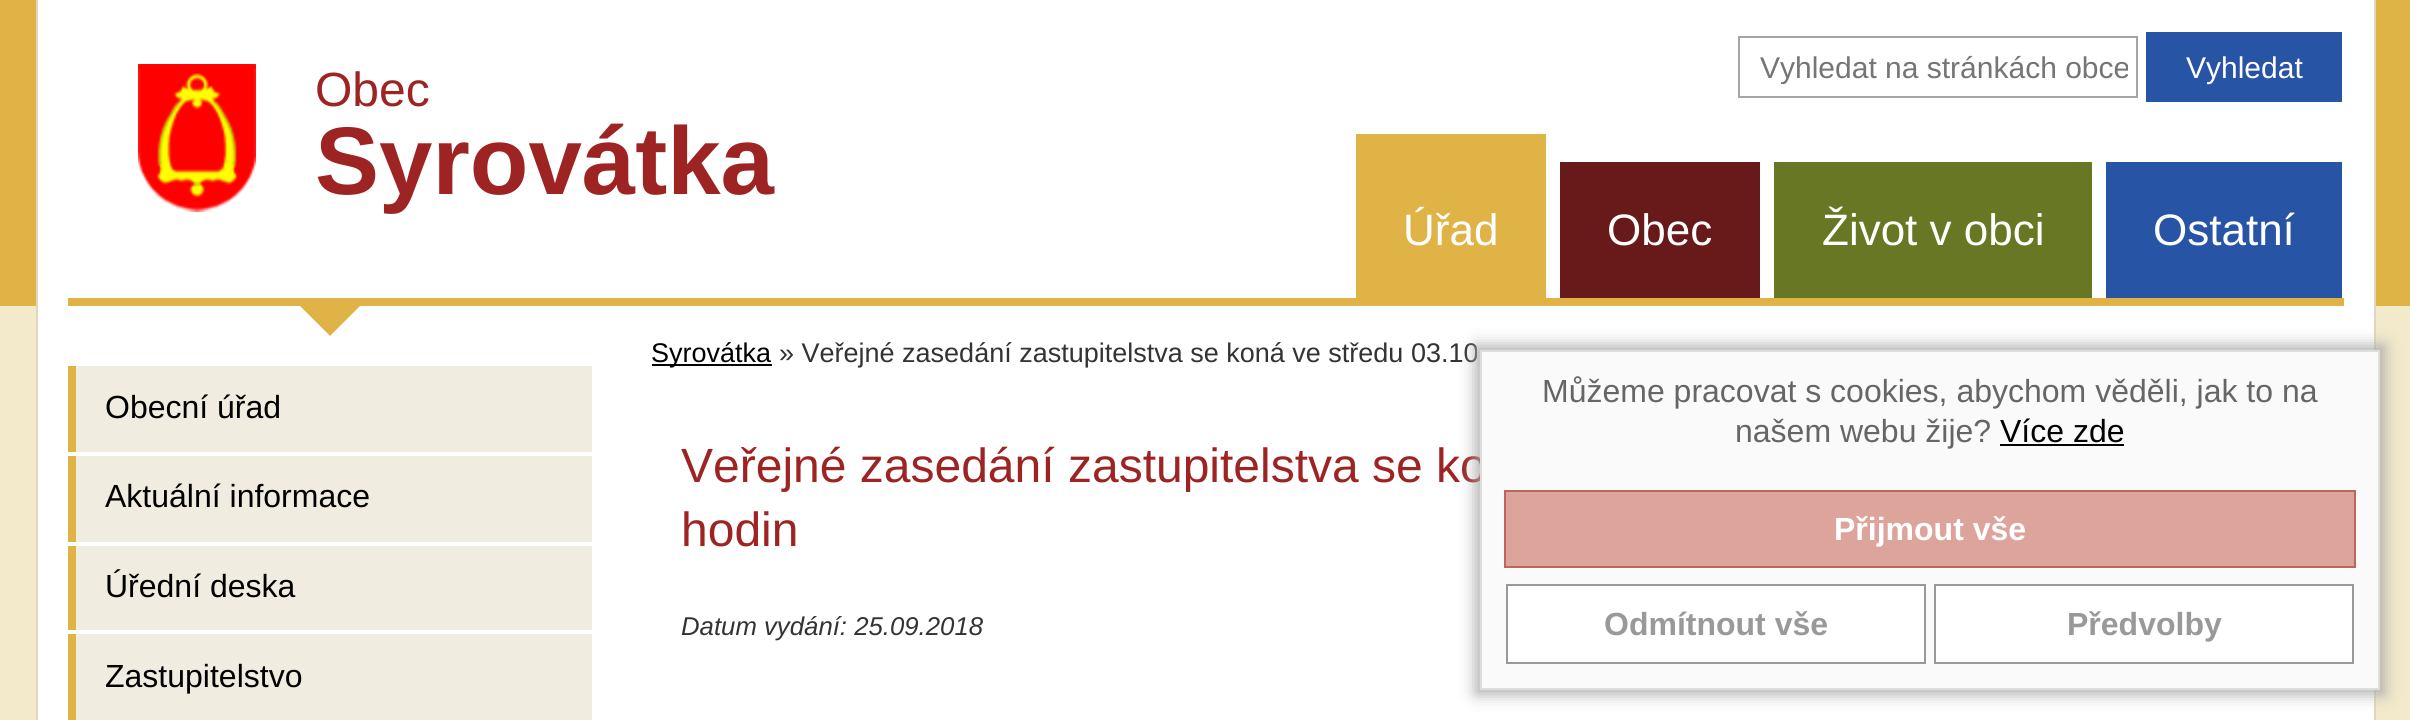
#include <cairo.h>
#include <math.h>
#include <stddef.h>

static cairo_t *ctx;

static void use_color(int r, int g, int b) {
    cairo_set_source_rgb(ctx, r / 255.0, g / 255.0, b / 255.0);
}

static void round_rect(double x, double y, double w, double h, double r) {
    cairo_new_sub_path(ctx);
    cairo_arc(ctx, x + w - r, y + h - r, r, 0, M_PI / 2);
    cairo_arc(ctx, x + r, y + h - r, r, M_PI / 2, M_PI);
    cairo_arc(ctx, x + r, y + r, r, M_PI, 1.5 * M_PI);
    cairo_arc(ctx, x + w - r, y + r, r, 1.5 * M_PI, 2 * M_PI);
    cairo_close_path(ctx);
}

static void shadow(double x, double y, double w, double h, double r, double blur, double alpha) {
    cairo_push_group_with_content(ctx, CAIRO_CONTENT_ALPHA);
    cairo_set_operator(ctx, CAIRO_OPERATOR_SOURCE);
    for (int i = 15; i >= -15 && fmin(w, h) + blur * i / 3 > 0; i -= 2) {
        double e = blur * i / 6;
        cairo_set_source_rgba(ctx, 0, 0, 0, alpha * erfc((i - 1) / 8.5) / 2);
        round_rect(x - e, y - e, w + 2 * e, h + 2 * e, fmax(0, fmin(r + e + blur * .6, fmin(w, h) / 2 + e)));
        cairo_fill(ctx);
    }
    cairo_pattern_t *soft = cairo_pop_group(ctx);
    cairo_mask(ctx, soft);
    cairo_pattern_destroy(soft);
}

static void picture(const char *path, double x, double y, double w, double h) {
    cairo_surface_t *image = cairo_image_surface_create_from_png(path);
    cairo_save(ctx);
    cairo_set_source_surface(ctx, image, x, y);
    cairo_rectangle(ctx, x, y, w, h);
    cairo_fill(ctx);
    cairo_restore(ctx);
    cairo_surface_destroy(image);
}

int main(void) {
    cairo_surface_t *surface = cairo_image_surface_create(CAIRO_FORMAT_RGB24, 2410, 720);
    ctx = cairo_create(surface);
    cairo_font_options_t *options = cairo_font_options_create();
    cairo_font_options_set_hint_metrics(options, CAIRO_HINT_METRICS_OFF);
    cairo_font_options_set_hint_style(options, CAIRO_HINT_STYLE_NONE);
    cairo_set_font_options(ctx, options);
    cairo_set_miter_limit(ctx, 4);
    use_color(224, 179, 70);
    cairo_paint(ctx);
    use_color(255, 255, 255);
    cairo_rectangle(ctx, 38, 0, 2336, 306);
    cairo_fill(ctx);
    use_color(224, 216, 187);
    cairo_rectangle(ctx, 2374, 0, 2, 306);
    cairo_fill(ctx);
    cairo_rectangle(ctx, 36, 0, 2, 306);
    cairo_fill(ctx);
    picture("img1.png", 138, 64, 118, 148);
    cairo_select_font_face(ctx, "Liberation Sans", CAIRO_FONT_SLANT_NORMAL, CAIRO_FONT_WEIGHT_NORMAL);
    cairo_set_font_size(ctx, 48);
    use_color(158, 36, 36);
    cairo_move_to(ctx, 315, 106);
    cairo_show_text(ctx, "Obec");
    cairo_select_font_face(ctx, "Liberation Sans", CAIRO_FONT_SLANT_NORMAL, CAIRO_FONT_WEIGHT_BOLD);
    cairo_set_font_size(ctx, 96);
    cairo_move_to(ctx, 315, 194);
    cairo_show_text(ctx, "Syrovátka");
    cairo_rectangle(ctx, 1739, 37, 398, 60);
    use_color(166, 164, 164);
    cairo_stroke(ctx);
    cairo_save(ctx);
    cairo_rectangle(ctx, 1760, 50, 368, 34);
    cairo_clip(ctx);
    cairo_select_font_face(ctx, "Liberation Sans", CAIRO_FONT_SLANT_NORMAL, CAIRO_FONT_WEIGHT_NORMAL);
    cairo_set_font_size(ctx, 30);
    use_color(117, 117, 117);
    cairo_move_to(ctx, 1760, 78);
    cairo_show_text(ctx, "Vyhledat na stránkách obce");
    cairo_restore(ctx);
    use_color(40, 84, 166);
    cairo_rectangle(ctx, 2146, 32, 196, 70);
    cairo_fill(ctx);
    cairo_select_font_face(ctx, "Liberation Sans", CAIRO_FONT_SLANT_NORMAL, CAIRO_FONT_WEIGHT_NORMAL);
    cairo_set_font_size(ctx, 30);
    use_color(255, 255, 255);
    cairo_move_to(ctx, 2186, 78);
    cairo_show_text(ctx, "Vyhledat");
    use_color(224, 179, 70);
    cairo_rectangle(ctx, 1356, 134, 190, 164);
    cairo_fill(ctx);
    cairo_set_font_size(ctx, 44);
    use_color(255, 255, 255);
    cairo_move_to(ctx, 1403, 245);
    cairo_show_text(ctx, "Úřad");
    use_color(104, 25, 25);
    cairo_rectangle(ctx, 1560, 162, 200, 136);
    cairo_fill(ctx);
    use_color(255, 255, 255);
    cairo_move_to(ctx, 1607, 245);
    cairo_show_text(ctx, "Obec");
    use_color(104, 119, 36);
    cairo_rectangle(ctx, 1774, 162, 318, 136);
    cairo_fill(ctx);
    use_color(255, 255, 255);
    cairo_move_to(ctx, 1822, 245);
    cairo_show_text(ctx, "Život v obci");
    use_color(40, 84, 166);
    cairo_rectangle(ctx, 2106, 162, 236, 136);
    cairo_fill(ctx);
    use_color(255, 255, 255);
    cairo_move_to(ctx, 2153, 245);
    cairo_show_text(ctx, "Ostatní");
    use_color(224, 179, 70);
    cairo_rectangle(ctx, 68, 298, 2276, 8);
    cairo_fill(ctx);
    use_color(243, 234, 203);
    cairo_rectangle(ctx, 0, 306, 2410, 414);
    cairo_fill(ctx);
    use_color(255, 255, 255);
    cairo_rectangle(ctx, 38, 306, 2336, 414);
    cairo_fill(ctx);
    use_color(224, 216, 187);
    cairo_rectangle(ctx, 2374, 306, 2, 414);
    cairo_fill(ctx);
    cairo_rectangle(ctx, 36, 306, 2, 414);
    cairo_fill(ctx);
    use_color(224, 179, 70);
    cairo_new_path(ctx);
    cairo_move_to(ctx, 300, 306);
    cairo_line_to(ctx, 360, 306);
    cairo_line_to(ctx, 330, 336);
    cairo_close_path(ctx);
    cairo_fill(ctx);
    use_color(240, 236, 224);
    cairo_rectangle(ctx, 76, 366, 516, 86);
    cairo_fill(ctx);
    use_color(224, 179, 70);
    cairo_rectangle(ctx, 68, 366, 8, 86);
    cairo_fill(ctx);
    cairo_set_font_size(ctx, 32);
    use_color(0, 0, 0);
    cairo_move_to(ctx, 105, 418);
    cairo_show_text(ctx, "Obecní úřad");
    use_color(240, 236, 224);
    cairo_rectangle(ctx, 76, 456, 516, 86);
    cairo_fill(ctx);
    use_color(224, 179, 70);
    cairo_rectangle(ctx, 68, 456, 8, 86);
    cairo_fill(ctx);
    use_color(0, 0, 0);
    cairo_move_to(ctx, 105, 507);
    cairo_show_text(ctx, "Aktuální informace");
    use_color(240, 236, 224);
    cairo_rectangle(ctx, 76, 546, 516, 84);
    cairo_fill(ctx);
    use_color(224, 179, 70);
    cairo_rectangle(ctx, 68, 546, 8, 84);
    cairo_fill(ctx);
    use_color(0, 0, 0);
    cairo_move_to(ctx, 105, 597);
    cairo_show_text(ctx, "Úřední deska");
    use_color(240, 236, 224);
    cairo_rectangle(ctx, 76, 634, 516, 86);
    cairo_fill(ctx);
    use_color(224, 179, 70);
    cairo_rectangle(ctx, 68, 634, 8, 86);
    cairo_fill(ctx);
    use_color(0, 0, 0);
    cairo_move_to(ctx, 105, 687);
    cairo_show_text(ctx, "Zastupitelstvo");
    cairo_rectangle(ctx, 652, 364, 120, 2);
    cairo_fill(ctx);
    cairo_set_font_size(ctx, 27);
    cairo_move_to(ctx, 651, 362);
    cairo_show_text(ctx, "Syrovátka");
    use_color(51, 51, 51);
    cairo_move_to(ctx, 779, 362);
    cairo_show_text(ctx, "» Veřejné zasedání zastupitelstva se koná ve středu 03.10");
    cairo_set_font_size(ctx, 48);
    use_color(158, 36, 36);
    cairo_move_to(ctx, 681, 482);
    cairo_show_text(ctx, "Veřejné zasedání zastupitelstva se ko");
    cairo_move_to(ctx, 681, 546);
    cairo_show_text(ctx, "hodin");
    cairo_select_font_face(ctx, "Liberation Sans", CAIRO_FONT_SLANT_ITALIC, CAIRO_FONT_WEIGHT_NORMAL);
    cairo_set_font_size(ctx, 25.75);
    use_color(51, 51, 51);
    cairo_move_to(ctx, 681, 635);
    cairo_show_text(ctx, "Datum vydání: 25.09.2018");
    use_color(170, 170, 170);
    shadow(1476, 346, 908, 348, 0, 8, 1);
    use_color(250, 250, 250);
    cairo_rectangle(ctx, 1481, 351, 898, 338);
    cairo_fill_preserve(ctx);
    use_color(221, 221, 221);
    cairo_stroke(ctx);
    cairo_select_font_face(ctx, "Liberation Sans", CAIRO_FONT_SLANT_NORMAL, CAIRO_FONT_WEIGHT_NORMAL);
    cairo_set_font_size(ctx, 32);
    use_color(102, 102, 102);
    cairo_move_to(ctx, 1542, 402);
    cairo_show_text(ctx, "Můžeme pracovat s cookies, abychom věděli, jak to na");
    cairo_move_to(ctx, 1735, 442);
    cairo_show_text(ctx, "našem webu žije?");
    use_color(0, 0, 0);
    cairo_move_to(ctx, 2000, 442);
    cairo_show_text(ctx, "Více zde");
    cairo_rectangle(ctx, 2000, 444, 124, 2);
    cairo_fill(ctx);
    use_color(221, 164, 156);
    cairo_rectangle(ctx, 1505, 491, 850, 76);
    cairo_fill_preserve(ctx);
    use_color(189, 103, 91);
    cairo_stroke(ctx);
    cairo_select_font_face(ctx, "Liberation Sans", CAIRO_FONT_SLANT_NORMAL, CAIRO_FONT_WEIGHT_BOLD);
    use_color(255, 255, 255);
    cairo_move_to(ctx, 1834, 540);
    cairo_show_text(ctx, "Přijmout vše");
    cairo_rectangle(ctx, 1507, 585, 418, 78);
    cairo_fill_preserve(ctx);
    use_color(153, 153, 153);
    cairo_stroke(ctx);
    cairo_move_to(ctx, 1604, 635);
    cairo_show_text(ctx, "Odmítnout vše");
    use_color(255, 255, 255);
    cairo_rectangle(ctx, 1935, 585, 418, 78);
    cairo_fill_preserve(ctx);
    use_color(153, 153, 153);
    cairo_stroke(ctx);
    cairo_move_to(ctx, 2067, 635);
    cairo_show_text(ctx, "Předvolby");
    cairo_surface_write_to_png(surface, "result.png");
    cairo_font_options_destroy(options);
    cairo_destroy(ctx);
    cairo_surface_destroy(surface);
    return 0;
}
